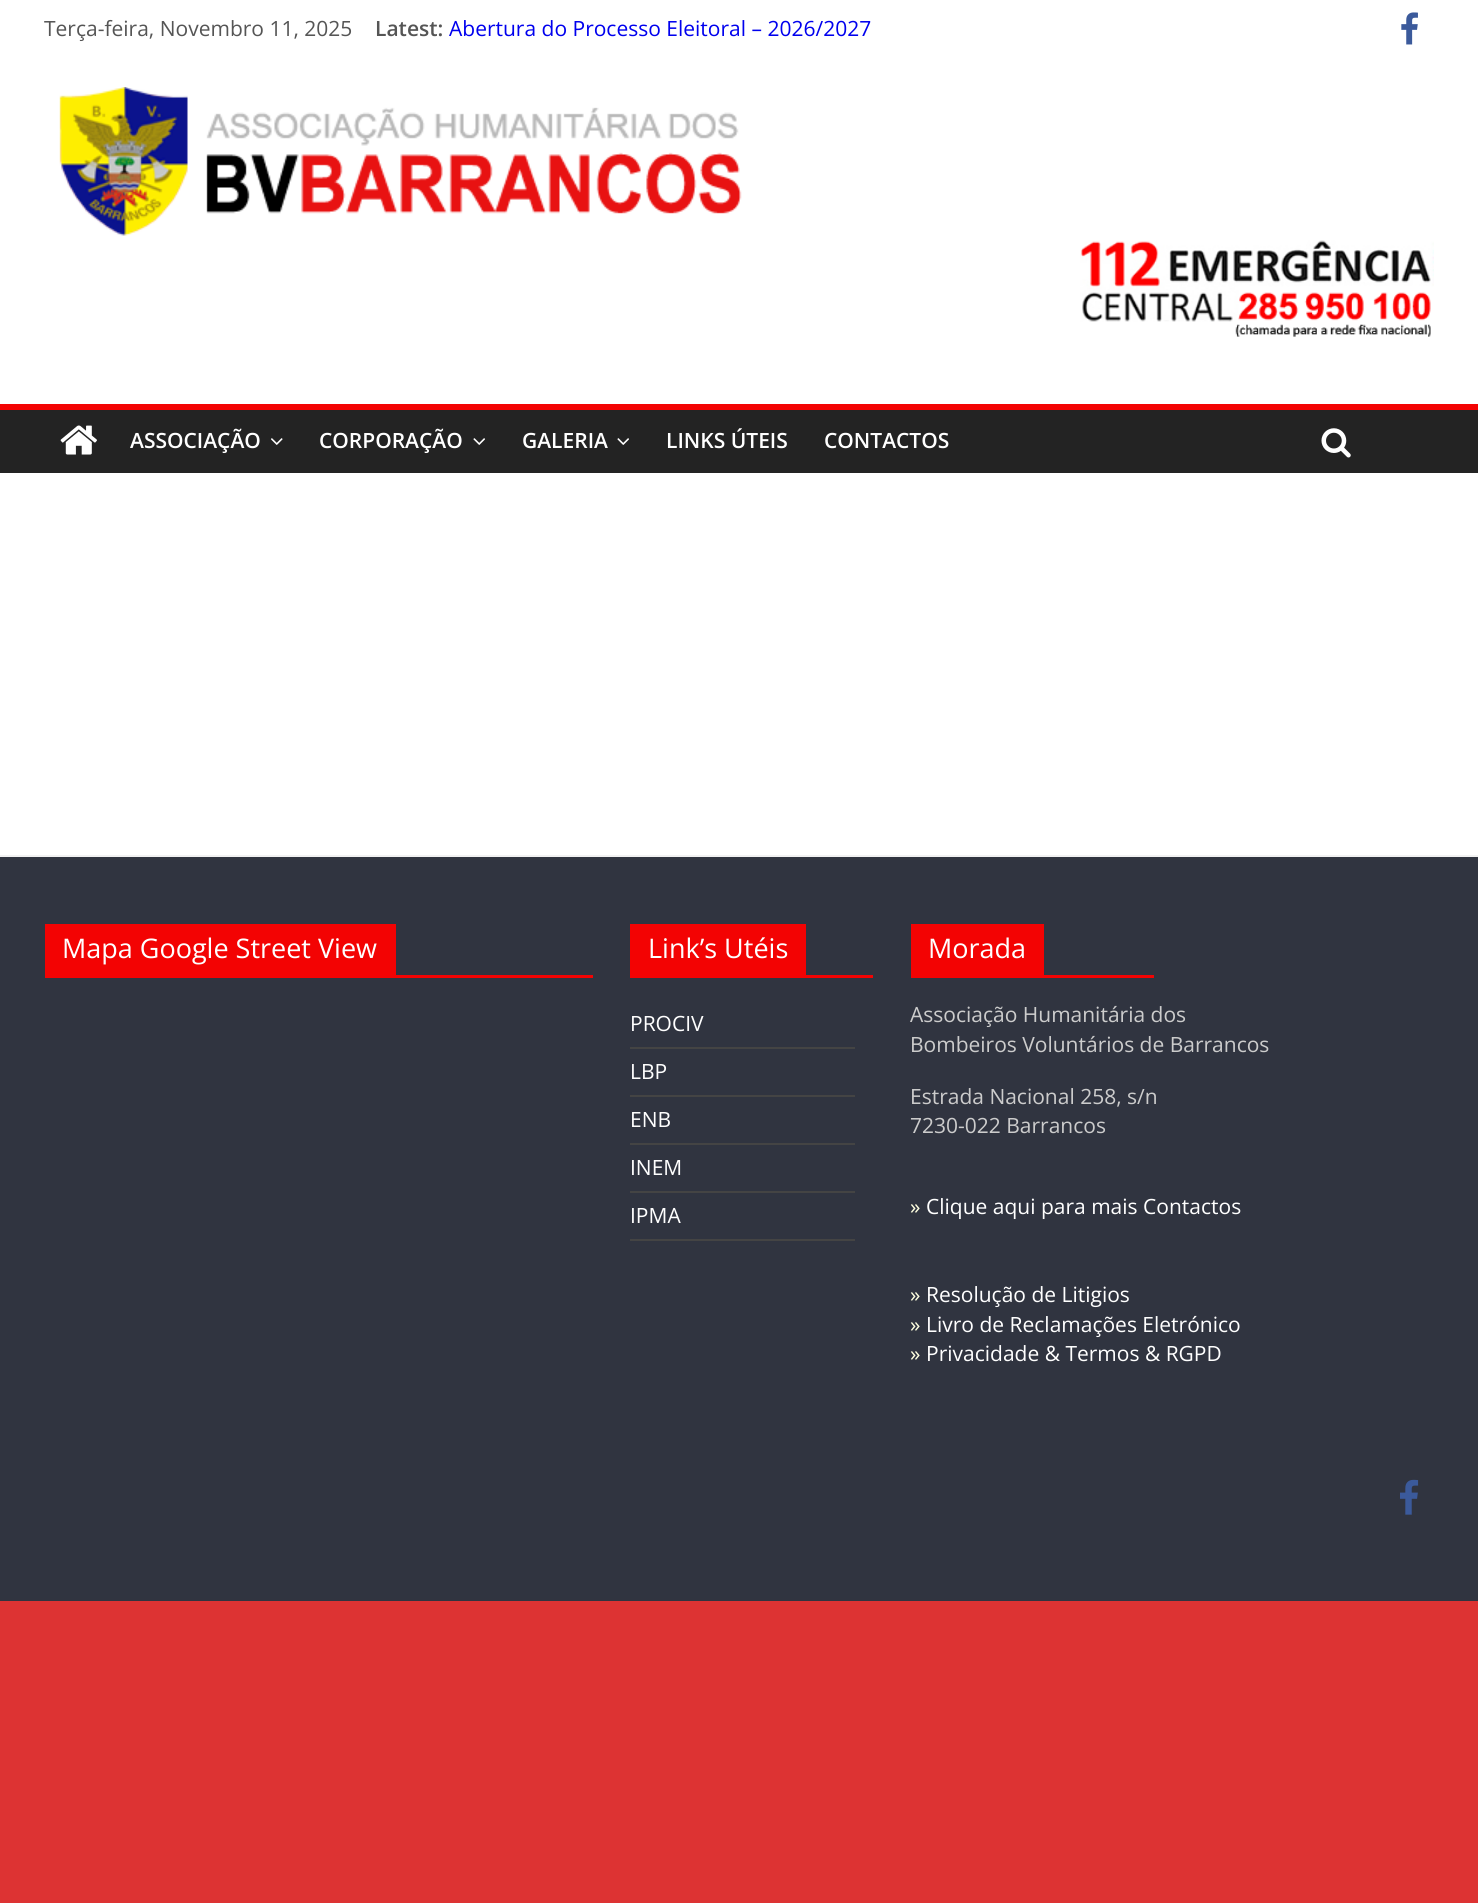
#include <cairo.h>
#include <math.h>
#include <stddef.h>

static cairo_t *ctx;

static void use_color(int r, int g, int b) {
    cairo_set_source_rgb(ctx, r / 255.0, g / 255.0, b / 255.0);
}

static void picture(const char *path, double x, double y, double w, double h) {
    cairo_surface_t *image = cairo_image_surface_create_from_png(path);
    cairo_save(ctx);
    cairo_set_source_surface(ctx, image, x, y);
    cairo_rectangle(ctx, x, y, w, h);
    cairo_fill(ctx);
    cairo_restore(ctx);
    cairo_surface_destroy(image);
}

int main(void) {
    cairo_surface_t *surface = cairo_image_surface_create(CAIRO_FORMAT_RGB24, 1478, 1903);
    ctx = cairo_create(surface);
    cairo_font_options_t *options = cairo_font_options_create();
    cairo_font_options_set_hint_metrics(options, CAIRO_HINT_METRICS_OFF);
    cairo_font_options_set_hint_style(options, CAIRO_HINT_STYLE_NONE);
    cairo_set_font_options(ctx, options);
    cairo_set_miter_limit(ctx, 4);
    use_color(221, 51, 51);
    cairo_paint(ctx);
    use_color(255, 255, 255);
    cairo_rectangle(ctx, 0, 0, 1478, 855);
    cairo_fill(ctx);
    cairo_select_font_face(ctx, "Open Sans", CAIRO_FONT_SLANT_NORMAL, CAIRO_FONT_WEIGHT_NORMAL);
    cairo_set_font_size(ctx, 21);
    use_color(85, 85, 85);
    cairo_move_to(ctx, 44, 36);
    cairo_show_text(ctx, "Terça-feira, Novembro 11, 2025");
    cairo_select_font_face(ctx, "Open Sans SemiBold", CAIRO_FONT_SLANT_NORMAL, CAIRO_FONT_WEIGHT_NORMAL);
    cairo_move_to(ctx, 375, 36);
    cairo_show_text(ctx, "Latest:");
    cairo_select_font_face(ctx, "Open Sans", CAIRO_FONT_SLANT_NORMAL, CAIRO_FONT_WEIGHT_NORMAL);
    use_color(0, 0, 238);
    cairo_move_to(ctx, 449, 36);
    cairo_show_text(ctx, "Abertura do Processo Eleitoral – 2026/2027");
    picture("img1.png", 1401, 12, 17, 33);
    picture("img2.png", 59, 87, 683, 149);
    picture("img3.png", 1080, 240, 354, 97);
    use_color(35, 35, 35);
    cairo_rectangle(ctx, 0, 410, 1478, 63);
    cairo_fill(ctx);
    use_color(243, 3, 3);
    cairo_rectangle(ctx, 0, 404, 1478, 6);
    cairo_fill(ctx);
    picture("img4.png", 60, 425, 37, 30);
    cairo_select_font_face(ctx, "Open Sans SemiBold", CAIRO_FONT_SLANT_NORMAL, CAIRO_FONT_WEIGHT_NORMAL);
    use_color(255, 255, 255);
    cairo_move_to(ctx, 130, 448);
    cairo_show_text(ctx, "ASSOCIAÇÃO");
    picture("img5.png", 271, 438, 12, 7);
    cairo_move_to(ctx, 319, 448);
    cairo_show_text(ctx, "CORPORAÇÃO");
    picture("img6.png", 473, 438, 12, 7);
    cairo_move_to(ctx, 522, 448);
    cairo_show_text(ctx, "GALERIA");
    picture("img6.png", 617, 438, 12, 7);
    cairo_move_to(ctx, 666, 448);
    cairo_show_text(ctx, "LINKS ÚTEIS");
    cairo_move_to(ctx, 824, 448);
    cairo_show_text(ctx, "CONTACTOS");
    picture("img7.png", 1321, 428, 30, 30);
    use_color(48, 52, 64);
    cairo_rectangle(ctx, 0, 857, 1478, 744);
    cairo_fill(ctx);
    use_color(242, 242, 242);
    cairo_rectangle(ctx, 0, 855, 1478, 2);
    cairo_fill(ctx);
    use_color(243, 3, 3);
    cairo_rectangle(ctx, 45, 975, 548, 3);
    cairo_fill(ctx);
    cairo_rectangle(ctx, 45, 924, 351, 51);
    cairo_fill(ctx);
    cairo_select_font_face(ctx, "Open Sans", CAIRO_FONT_SLANT_NORMAL, CAIRO_FONT_WEIGHT_NORMAL);
    cairo_set_font_size(ctx, 27);
    use_color(255, 255, 255);
    cairo_move_to(ctx, 62, 958);
    cairo_show_text(ctx, "Mapa Google Street View");
    use_color(243, 3, 3);
    cairo_rectangle(ctx, 630, 975, 243, 3);
    cairo_fill(ctx);
    cairo_rectangle(ctx, 630, 924, 176, 51);
    cairo_fill(ctx);
    use_color(255, 255, 255);
    cairo_move_to(ctx, 648, 958);
    cairo_show_text(ctx, "Link’s Utéis");
    use_color(68, 68, 68);
    cairo_rectangle(ctx, 630, 1047, 225, 2);
    cairo_fill(ctx);
    cairo_set_font_size(ctx, 21);
    use_color(255, 255, 255);
    cairo_move_to(ctx, 630, 1031);
    cairo_show_text(ctx, "PROCIV");
    use_color(68, 68, 68);
    cairo_rectangle(ctx, 630, 1095, 225, 2);
    cairo_fill(ctx);
    use_color(255, 255, 255);
    cairo_move_to(ctx, 630, 1079);
    cairo_show_text(ctx, "LBP");
    use_color(68, 68, 68);
    cairo_rectangle(ctx, 630, 1143, 225, 2);
    cairo_fill(ctx);
    use_color(255, 255, 255);
    cairo_move_to(ctx, 630, 1127);
    cairo_show_text(ctx, "ENB");
    use_color(68, 68, 68);
    cairo_rectangle(ctx, 630, 1191, 225, 2);
    cairo_fill(ctx);
    use_color(255, 255, 255);
    cairo_move_to(ctx, 630, 1175);
    cairo_show_text(ctx, "INEM");
    use_color(68, 68, 68);
    cairo_rectangle(ctx, 630, 1239, 225, 2);
    cairo_fill(ctx);
    use_color(255, 255, 255);
    cairo_move_to(ctx, 630, 1223);
    cairo_show_text(ctx, "IPMA");
    use_color(243, 3, 3);
    cairo_rectangle(ctx, 911, 975, 243, 3);
    cairo_fill(ctx);
    cairo_rectangle(ctx, 911, 924, 133, 51);
    cairo_fill(ctx);
    cairo_set_font_size(ctx, 27);
    use_color(255, 255, 255);
    cairo_move_to(ctx, 928, 958);
    cairo_show_text(ctx, "Morada");
    cairo_set_font_size(ctx, 21);
    use_color(204, 204, 204);
    cairo_move_to(ctx, 910, 1022);
    cairo_show_text(ctx, "Associação Humanitária dos");
    cairo_move_to(ctx, 910, 1052);
    cairo_show_text(ctx, "Bombeiros Voluntários de Barrancos");
    cairo_move_to(ctx, 910, 1104);
    cairo_show_text(ctx, "Estrada Nacional 258, s/n");
    cairo_move_to(ctx, 910, 1133);
    cairo_show_text(ctx, "7230-022 Barrancos");
    use_color(255, 255, 224);
    cairo_move_to(ctx, 910, 1214);
    cairo_show_text(ctx, "»");
    use_color(255, 255, 255);
    cairo_move_to(ctx, 926, 1214);
    cairo_show_text(ctx, "Clique aqui para mais Contactos");
    use_color(255, 255, 224);
    cairo_move_to(ctx, 910, 1302);
    cairo_show_text(ctx, "»");
    use_color(255, 255, 255);
    cairo_move_to(ctx, 926, 1302);
    cairo_show_text(ctx, "Resolução de Litigios");
    use_color(255, 255, 224);
    cairo_move_to(ctx, 910, 1332);
    cairo_show_text(ctx, "»");
    use_color(255, 255, 255);
    cairo_move_to(ctx, 926, 1332);
    cairo_show_text(ctx, "Livro de Reclamações Eletrónico");
    use_color(255, 255, 224);
    cairo_move_to(ctx, 910, 1361);
    cairo_show_text(ctx, "»");
    use_color(255, 255, 255);
    cairo_move_to(ctx, 926, 1361);
    cairo_show_text(ctx, "Privacidade & Termos & RGPD");
    picture("img8.png", 1400, 1479, 19, 36);
    cairo_surface_write_to_png(surface, "result.png");
    cairo_font_options_destroy(options);
    cairo_destroy(ctx);
    cairo_surface_destroy(surface);
    return 0;
}
